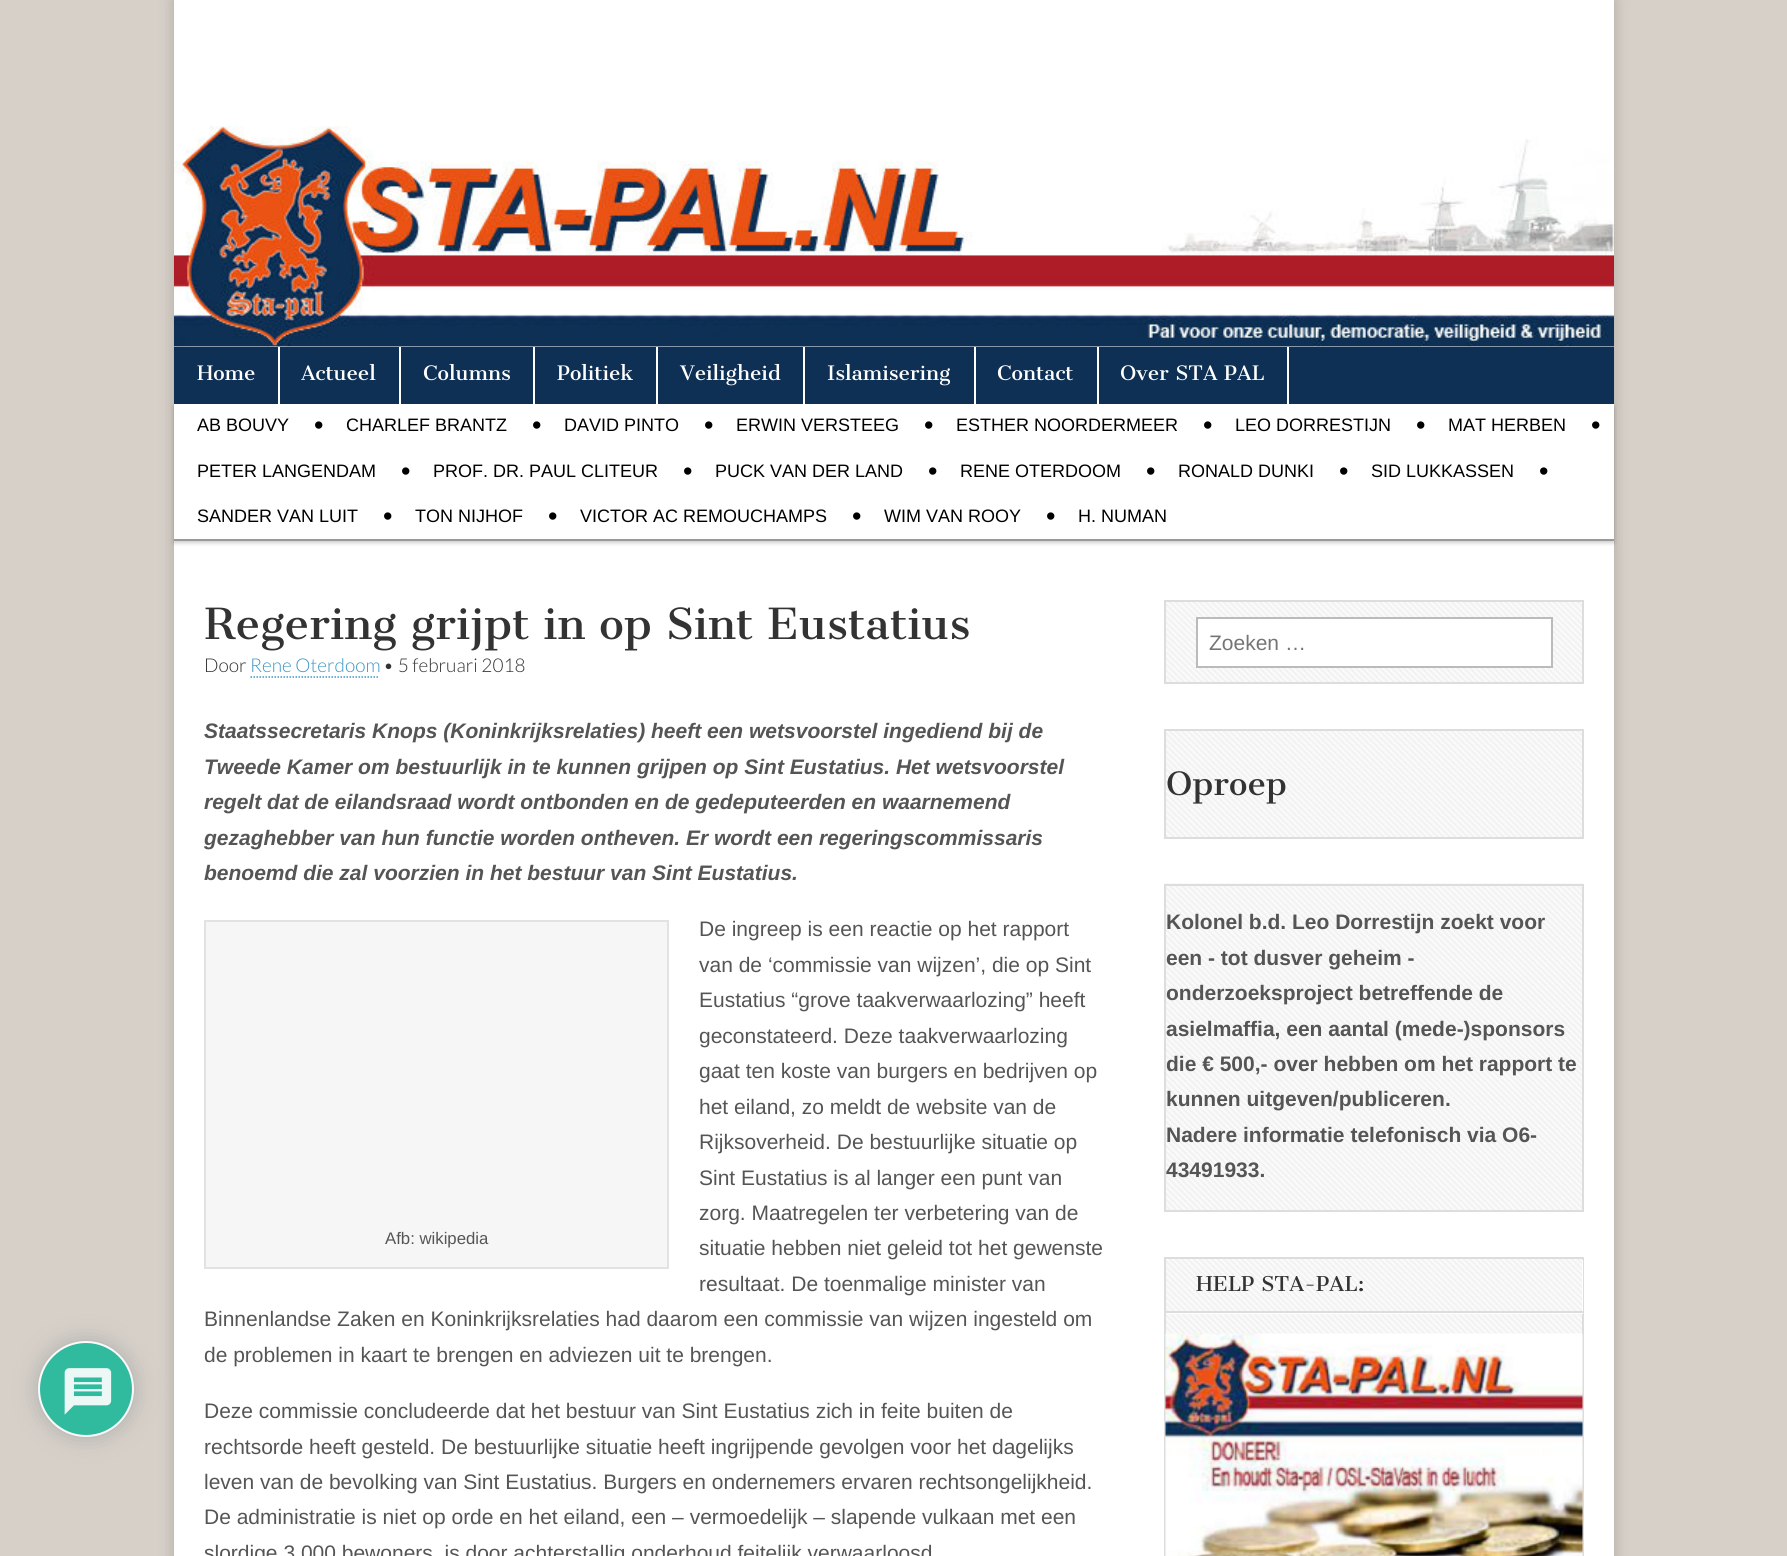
#include <cairo.h>
#include <math.h>
#include <stddef.h>

static cairo_t *ctx;

static void use_color(int r, int g, int b) {
    cairo_set_source_rgb(ctx, r / 255.0, g / 255.0, b / 255.0);
}

static void round_rect(double x, double y, double w, double h, double r) {
    cairo_new_sub_path(ctx);
    cairo_arc(ctx, x + w - r, y + h - r, r, 0, M_PI / 2);
    cairo_arc(ctx, x + r, y + h - r, r, M_PI / 2, M_PI);
    cairo_arc(ctx, x + r, y + r, r, M_PI, 1.5 * M_PI);
    cairo_arc(ctx, x + w - r, y + r, r, 1.5 * M_PI, 2 * M_PI);
    cairo_close_path(ctx);
}

static void shadow(double x, double y, double w, double h, double r, double blur, double alpha) {
    cairo_push_group_with_content(ctx, CAIRO_CONTENT_ALPHA);
    cairo_set_operator(ctx, CAIRO_OPERATOR_SOURCE);
    for (int i = 15; i >= -15 && fmin(w, h) + blur * i / 3 > 0; i -= 2) {
        double e = blur * i / 6;
        cairo_set_source_rgba(ctx, 0, 0, 0, alpha * erfc((i - 1) / 8.5) / 2);
        round_rect(x - e, y - e, w + 2 * e, h + 2 * e, fmax(0, fmin(r + e + blur * .6, fmin(w, h) / 2 + e)));
        cairo_fill(ctx);
    }
    cairo_pattern_t *soft = cairo_pop_group(ctx);
    cairo_mask(ctx, soft);
    cairo_pattern_destroy(soft);
}

static void picture(const char *path, double x, double y, double w, double h) {
    cairo_surface_t *image = cairo_image_surface_create_from_png(path);
    cairo_save(ctx);
    cairo_set_source_surface(ctx, image, x, y);
    cairo_rectangle(ctx, x, y, w, h);
    cairo_fill(ctx);
    cairo_restore(ctx);
    cairo_surface_destroy(image);
}

int main(void) {
    cairo_surface_t *surface = cairo_image_surface_create(CAIRO_FORMAT_RGB24, 1787, 1556);
    ctx = cairo_create(surface);
    cairo_font_options_t *options = cairo_font_options_create();
    cairo_font_options_set_hint_metrics(options, CAIRO_HINT_METRICS_OFF);
    cairo_font_options_set_hint_style(options, CAIRO_HINT_STYLE_NONE);
    cairo_set_font_options(ctx, options);
    cairo_set_miter_limit(ctx, 4);
    use_color(214, 208, 200);
    cairo_paint(ctx);
    use_color(174, 174, 173);
    shadow(38, 1341, 96, 96, 48, 11, 1);
    use_color(48, 187, 159);
    cairo_arc(ctx, 86, 1389, 47, 0, 2 * M_PI);
    cairo_fill_preserve(ctx);
    use_color(251, 250, 250);
    cairo_stroke(ctx);
    picture("img1.png", 64, 1368, 48, 47);
    use_color(0, 0, 0);
    shadow(174, 0, 1440, 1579, 0, 7.5, 0.2);
    use_color(255, 255, 255);
    cairo_rectangle(ctx, 174, 0, 1440, 1556);
    cairo_fill(ctx);
    picture("img2.png", 174, 126, 1440, 221);
    use_color(14, 48, 85);
    cairo_rectangle(ctx, 174, 347, 1440, 57);
    cairo_fill(ctx);
    cairo_save(ctx);
    cairo_set_fill_rule(ctx, CAIRO_FILL_RULE_EVEN_ODD);
    cairo_new_path(ctx);
    cairo_move_to(ctx, 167, 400);
    cairo_line_to(ctx, 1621, 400);
    cairo_line_to(ctx, 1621, 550);
    cairo_line_to(ctx, 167, 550);
    cairo_close_path(ctx);
    cairo_move_to(ctx, 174, 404);
    cairo_line_to(ctx, 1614, 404);
    cairo_line_to(ctx, 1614, 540);
    cairo_line_to(ctx, 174, 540);
    cairo_close_path(ctx);
    cairo_clip(ctx);
    use_color(0, 0, 0);
    shadow(174, 407, 1440, 136, 0, 2, 0.2);
    cairo_restore(ctx);
    use_color(255, 255, 255);
    cairo_rectangle(ctx, 278, 347, 2, 57);
    cairo_fill(ctx);
    cairo_select_font_face(ctx, "Cantata One", CAIRO_FONT_SLANT_NORMAL, CAIRO_FONT_WEIGHT_NORMAL);
    cairo_set_font_size(ctx, 19.5);
    cairo_move_to(ctx, 197, 380);
    cairo_show_text(ctx, "Home");
    cairo_rectangle(ctx, 399, 347, 2, 57);
    cairo_fill(ctx);
    cairo_move_to(ctx, 301, 380);
    cairo_show_text(ctx, "Actueel");
    cairo_rectangle(ctx, 533, 347, 2, 57);
    cairo_fill(ctx);
    cairo_move_to(ctx, 423, 380);
    cairo_show_text(ctx, "Columns");
    cairo_rectangle(ctx, 656, 347, 2, 57);
    cairo_fill(ctx);
    cairo_move_to(ctx, 557, 380);
    cairo_show_text(ctx, "Politiek");
    cairo_rectangle(ctx, 803, 347, 2, 57);
    cairo_fill(ctx);
    cairo_move_to(ctx, 680, 380);
    cairo_show_text(ctx, "Veiligheid");
    cairo_rectangle(ctx, 974, 347, 2, 57);
    cairo_fill(ctx);
    cairo_move_to(ctx, 827, 380);
    cairo_show_text(ctx, "Islamisering");
    cairo_rectangle(ctx, 1097, 347, 2, 57);
    cairo_fill(ctx);
    cairo_move_to(ctx, 997, 380);
    cairo_show_text(ctx, "Contact");
    cairo_rectangle(ctx, 1287, 347, 2, 57);
    cairo_fill(ctx);
    cairo_move_to(ctx, 1120, 380);
    cairo_show_text(ctx, "Over STA PAL");
    use_color(153, 153, 153);
    cairo_rectangle(ctx, 174, 539, 1440, 2);
    cairo_fill(ctx);
    cairo_select_font_face(ctx, "Liberation Sans", CAIRO_FONT_SLANT_NORMAL, CAIRO_FONT_WEIGHT_NORMAL);
    cairo_set_font_size(ctx, 18);
    use_color(0, 0, 0);
    cairo_move_to(ctx, 197, 431);
    cairo_show_text(ctx, "AB BOUVY");
    cairo_set_font_size(ctx, 27);
    cairo_move_to(ctx, 314, 434);
    cairo_show_text(ctx, "•");
    cairo_set_font_size(ctx, 18);
    cairo_move_to(ctx, 346, 431);
    cairo_show_text(ctx, "CHARLEF BRANTZ");
    cairo_set_font_size(ctx, 27);
    cairo_move_to(ctx, 532, 434);
    cairo_show_text(ctx, "•");
    cairo_set_font_size(ctx, 18);
    cairo_move_to(ctx, 564, 431);
    cairo_show_text(ctx, "DAVID PINTO");
    cairo_set_font_size(ctx, 27);
    cairo_move_to(ctx, 704, 434);
    cairo_show_text(ctx, "•");
    cairo_set_font_size(ctx, 18);
    cairo_move_to(ctx, 736, 431);
    cairo_show_text(ctx, "ERWIN VERSTEEG");
    cairo_set_font_size(ctx, 27);
    cairo_move_to(ctx, 924, 434);
    cairo_show_text(ctx, "•");
    cairo_set_font_size(ctx, 18);
    cairo_move_to(ctx, 956, 431);
    cairo_show_text(ctx, "ESTHER NOORDERMEER");
    cairo_set_font_size(ctx, 27);
    cairo_move_to(ctx, 1203, 434);
    cairo_show_text(ctx, "•");
    cairo_set_font_size(ctx, 18);
    cairo_move_to(ctx, 1235, 431);
    cairo_show_text(ctx, "LEO DORRESTIJN");
    cairo_set_font_size(ctx, 27);
    cairo_move_to(ctx, 1416, 434);
    cairo_show_text(ctx, "•");
    cairo_set_font_size(ctx, 18);
    cairo_move_to(ctx, 1448, 431);
    cairo_show_text(ctx, "MAT HERBEN");
    cairo_set_font_size(ctx, 27);
    cairo_move_to(ctx, 1591, 434);
    cairo_show_text(ctx, "•");
    cairo_set_font_size(ctx, 18);
    cairo_move_to(ctx, 197, 477);
    cairo_show_text(ctx, "PETER LANGENDAM");
    cairo_set_font_size(ctx, 27);
    cairo_move_to(ctx, 401, 480);
    cairo_show_text(ctx, "•");
    cairo_set_font_size(ctx, 18);
    cairo_move_to(ctx, 433, 477);
    cairo_show_text(ctx, "PROF. DR. PAUL CLITEUR");
    cairo_set_font_size(ctx, 27);
    cairo_move_to(ctx, 683, 480);
    cairo_show_text(ctx, "•");
    cairo_set_font_size(ctx, 18);
    cairo_move_to(ctx, 715, 477);
    cairo_show_text(ctx, "PUCK VAN DER LAND");
    cairo_set_font_size(ctx, 27);
    cairo_move_to(ctx, 928, 480);
    cairo_show_text(ctx, "•");
    cairo_set_font_size(ctx, 18);
    cairo_move_to(ctx, 960, 477);
    cairo_show_text(ctx, "RENE OTERDOOM");
    cairo_set_font_size(ctx, 27);
    cairo_move_to(ctx, 1146, 480);
    cairo_show_text(ctx, "•");
    cairo_set_font_size(ctx, 18);
    cairo_move_to(ctx, 1178, 477);
    cairo_show_text(ctx, "RONALD DUNKI");
    cairo_set_font_size(ctx, 27);
    cairo_move_to(ctx, 1339, 480);
    cairo_show_text(ctx, "•");
    cairo_set_font_size(ctx, 18);
    cairo_move_to(ctx, 1371, 477);
    cairo_show_text(ctx, "SID LUKKASSEN");
    cairo_set_font_size(ctx, 27);
    cairo_move_to(ctx, 1539, 480);
    cairo_show_text(ctx, "•");
    cairo_set_font_size(ctx, 18);
    cairo_move_to(ctx, 197, 522);
    cairo_show_text(ctx, "SANDER VAN LUIT");
    cairo_set_font_size(ctx, 27);
    cairo_move_to(ctx, 383, 525);
    cairo_show_text(ctx, "•");
    cairo_set_font_size(ctx, 18);
    cairo_move_to(ctx, 415, 522);
    cairo_show_text(ctx, "TON NIJHOF");
    cairo_set_font_size(ctx, 27);
    cairo_move_to(ctx, 548, 525);
    cairo_show_text(ctx, "•");
    cairo_set_font_size(ctx, 18);
    cairo_move_to(ctx, 580, 522);
    cairo_show_text(ctx, "VICTOR AC REMOUCHAMPS");
    cairo_set_font_size(ctx, 27);
    cairo_move_to(ctx, 852, 525);
    cairo_show_text(ctx, "•");
    cairo_set_font_size(ctx, 18);
    cairo_move_to(ctx, 884, 522);
    cairo_show_text(ctx, "WIM VAN ROOY");
    cairo_set_font_size(ctx, 27);
    cairo_move_to(ctx, 1046, 525);
    cairo_show_text(ctx, "•");
    cairo_set_font_size(ctx, 18);
    cairo_move_to(ctx, 1078, 522);
    cairo_show_text(ctx, "H. NUMAN");
    cairo_select_font_face(ctx, "Cantata One", CAIRO_FONT_SLANT_NORMAL, CAIRO_FONT_WEIGHT_NORMAL);
    cairo_set_font_size(ctx, 42);
    use_color(51, 51, 51);
    cairo_move_to(ctx, 204, 639);
    cairo_show_text(ctx, "Regering grijpt in op Sint Eustatius");
    cairo_select_font_face(ctx, "Lato Light", CAIRO_FONT_SLANT_NORMAL, CAIRO_FONT_WEIGHT_NORMAL);
    cairo_set_font_size(ctx, 19);
    cairo_move_to(ctx, 204, 672);
    cairo_show_text(ctx, "Door");
    use_color(61, 151, 194);
    cairo_move_to(ctx, 250, 672);
    cairo_show_text(ctx, "Rene Oterdoom");
    cairo_new_path(ctx);
    cairo_move_to(ctx, 250.5, 677);
    cairo_line_to(ctx, 379.5, 677);
    cairo_set_line_width(ctx, 1.5);
    cairo_set_dash(ctx, (double[]){1.5, 1.5}, 2, 0);
    cairo_stroke(ctx);
    use_color(51, 51, 51);
    cairo_move_to(ctx, 383, 672);
    cairo_show_text(ctx, "• 5 februari 2018");
    cairo_select_font_face(ctx, "Liberation Sans", CAIRO_FONT_SLANT_ITALIC, CAIRO_FONT_WEIGHT_BOLD);
    cairo_set_font_size(ctx, 21);
    use_color(85, 85, 85);
    cairo_move_to(ctx, 204, 738);
    cairo_show_text(ctx, "Staatssecretaris Knops (Koninkrijksrelaties) heeft een wetsvoorstel ingediend bij de");
    cairo_move_to(ctx, 204, 774);
    cairo_show_text(ctx, "Tweede Kamer om bestuurlijk in te kunnen grijpen op Sint Eustatius. Het wetsvoorstel");
    cairo_move_to(ctx, 204, 809);
    cairo_show_text(ctx, "regelt dat de eilandsraad wordt ontbonden en de gedeputeerden en waarnemend");
    cairo_move_to(ctx, 204, 845);
    cairo_show_text(ctx, "gezaghebber van hun functie worden ontheven. Er wordt een regeringscommissaris");
    cairo_move_to(ctx, 204, 880);
    cairo_show_text(ctx, "benoemd die zal voorzien in het bestuur van Sint Eustatius.");
    cairo_select_font_face(ctx, "Liberation Sans", CAIRO_FONT_SLANT_NORMAL, CAIRO_FONT_WEIGHT_NORMAL);
    cairo_move_to(ctx, 699, 936);
    cairo_show_text(ctx, "De ingreep is een reactie op het rapport");
    cairo_move_to(ctx, 699, 972);
    cairo_show_text(ctx, "van de ‘commissie van wijzen’, die op Sint");
    cairo_move_to(ctx, 699, 1007);
    cairo_show_text(ctx, "Eustatius “grove taakverwaarlozing” heeft");
    cairo_move_to(ctx, 699, 1043);
    cairo_show_text(ctx, "geconstateerd. Deze taakverwaarlozing");
    cairo_move_to(ctx, 699, 1078);
    cairo_show_text(ctx, "gaat ten koste van burgers en bedrijven op");
    cairo_move_to(ctx, 699, 1114);
    cairo_show_text(ctx, "het eiland, zo meldt de website van de");
    cairo_move_to(ctx, 699, 1149);
    cairo_show_text(ctx, "Rijksoverheid. De bestuurlijke situatie op");
    cairo_move_to(ctx, 699, 1185);
    cairo_show_text(ctx, "Sint Eustatius is al langer een punt van");
    cairo_move_to(ctx, 699, 1220);
    cairo_show_text(ctx, "zorg. Maatregelen ter verbetering van de");
    cairo_move_to(ctx, 699, 1255);
    cairo_show_text(ctx, "situatie hebben niet geleid tot het gewenste");
    cairo_move_to(ctx, 699, 1291);
    cairo_show_text(ctx, "resultaat. De toenmalige minister van");
    cairo_move_to(ctx, 204, 1326);
    cairo_show_text(ctx, "Binnenlandse Zaken en Koninkrijksrelaties had daarom een commissie van wijzen ingesteld om");
    cairo_move_to(ctx, 204, 1362);
    cairo_show_text(ctx, "de problemen in kaart te brengen en adviezen uit te brengen.");
    use_color(246, 246, 246);
    cairo_rectangle(ctx, 205, 921, 463, 347);
    cairo_fill_preserve(ctx);
    use_color(226, 226, 226);
    cairo_set_line_width(ctx, 2);
    cairo_set_dash(ctx, NULL, 0, 0);
    cairo_stroke(ctx);
    cairo_set_font_size(ctx, 16.75);
    use_color(85, 85, 85);
    cairo_move_to(ctx, 385, 1244);
    cairo_show_text(ctx, "Afb: wikipedia");
    cairo_set_font_size(ctx, 21);
    cairo_move_to(ctx, 204, 1418);
    cairo_show_text(ctx, "Deze commissie concludeerde dat het bestuur van Sint Eustatius zich in feite buiten de");
    cairo_move_to(ctx, 204, 1454);
    cairo_show_text(ctx, "rechtsorde heeft gesteld. De bestuurlijke situatie heeft ingrijpende gevolgen voor het dagelijks");
    cairo_move_to(ctx, 204, 1489);
    cairo_show_text(ctx, "leven van de bevolking van Sint Eustatius. Burgers en ondernemers ervaren rechtsongelijkheid.");
    cairo_move_to(ctx, 204, 1524);
    cairo_show_text(ctx, "De administratie is niet op orde en het eiland, een – vermoedelijk – slapende vulkaan met een");
    cairo_move_to(ctx, 204, 1560);
    cairo_show_text(ctx, "slordige 3.000 bewoners, is door achterstallig onderhoud feitelijk verwaarloosd");
    picture("img3.png", 1166, 602, 416, 80);
    cairo_rectangle(ctx, 1165, 601, 418, 82);
    use_color(221, 221, 221);
    cairo_stroke(ctx);
    use_color(255, 255, 255);
    cairo_rectangle(ctx, 1197, 618, 355, 49);
    cairo_fill_preserve(ctx);
    use_color(187, 187, 187);
    cairo_stroke(ctx);
    use_color(117, 117, 117);
    cairo_move_to(ctx, 1209, 650);
    cairo_show_text(ctx, "Zoeken …");
    picture("img4.png", 1166, 731, 416, 106);
    cairo_rectangle(ctx, 1165, 730, 418, 108);
    use_color(221, 221, 221);
    cairo_stroke(ctx);
    cairo_select_font_face(ctx, "Cantata One", CAIRO_FONT_SLANT_NORMAL, CAIRO_FONT_WEIGHT_NORMAL);
    cairo_set_font_size(ctx, 31.5);
    use_color(51, 51, 51);
    cairo_move_to(ctx, 1166, 795);
    cairo_show_text(ctx, "Oproep");
    picture("img5.png", 1164, 883, 420, 327);
    cairo_rectangle(ctx, 1165, 885, 418, 326);
    use_color(221, 221, 221);
    cairo_stroke(ctx);
    cairo_select_font_face(ctx, "Liberation Sans", CAIRO_FONT_SLANT_NORMAL, CAIRO_FONT_WEIGHT_BOLD);
    cairo_set_font_size(ctx, 21);
    use_color(85, 85, 85);
    cairo_move_to(ctx, 1166, 929);
    cairo_show_text(ctx, "Kolonel b.d. Leo Dorrestijn zoekt voor");
    cairo_move_to(ctx, 1166, 965);
    cairo_show_text(ctx, "een - tot dusver geheim -");
    cairo_move_to(ctx, 1166, 1000);
    cairo_show_text(ctx, "onderzoeksproject betreffende de");
    cairo_move_to(ctx, 1166, 1036);
    cairo_show_text(ctx, "asielmaffia, een aantal (mede-)sponsors");
    cairo_move_to(ctx, 1166, 1071);
    cairo_show_text(ctx, "die € 500,- over hebben om het rapport te");
    cairo_move_to(ctx, 1166, 1106);
    cairo_show_text(ctx, "kunnen uitgeven/publiceren.");
    cairo_move_to(ctx, 1166, 1142);
    cairo_show_text(ctx, "Nadere informatie telefonisch via O6-");
    cairo_move_to(ctx, 1166, 1177);
    cairo_show_text(ctx, "43491933.");
    picture("img6.png", 1166, 1259, 416, 75);
    cairo_rectangle(ctx, 1165, 1258, 418, 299);
    use_color(221, 221, 221);
    cairo_stroke(ctx);
    use_color(255, 255, 255);
    cairo_new_path(ctx);
    cairo_move_to(ctx, 1166, 1312);
    cairo_line_to(ctx, 1166, 1314);
    cairo_line_to(ctx, 1583, 1314);
    cairo_line_to(ctx, 1583, 1260);
    cairo_line_to(ctx, 1582, 1260);
    cairo_line_to(ctx, 1582, 1312);
    cairo_close_path(ctx);
    cairo_fill(ctx);
    use_color(221, 221, 221);
    cairo_rectangle(ctx, 1166, 1311, 417, 2);
    cairo_fill(ctx);
    cairo_select_font_face(ctx, "Cantata One", CAIRO_FONT_SLANT_NORMAL, CAIRO_FONT_WEIGHT_NORMAL);
    cairo_set_font_size(ctx, 20);
    use_color(51, 51, 51);
    cairo_move_to(ctx, 1196, 1291);
    cairo_show_text(ctx, "HELP STA-PAL:");
    picture("img7.png", 1165, 1333, 418, 223);
    cairo_surface_write_to_png(surface, "result.png");
    cairo_font_options_destroy(options);
    cairo_destroy(ctx);
    cairo_surface_destroy(surface);
    return 0;
}
